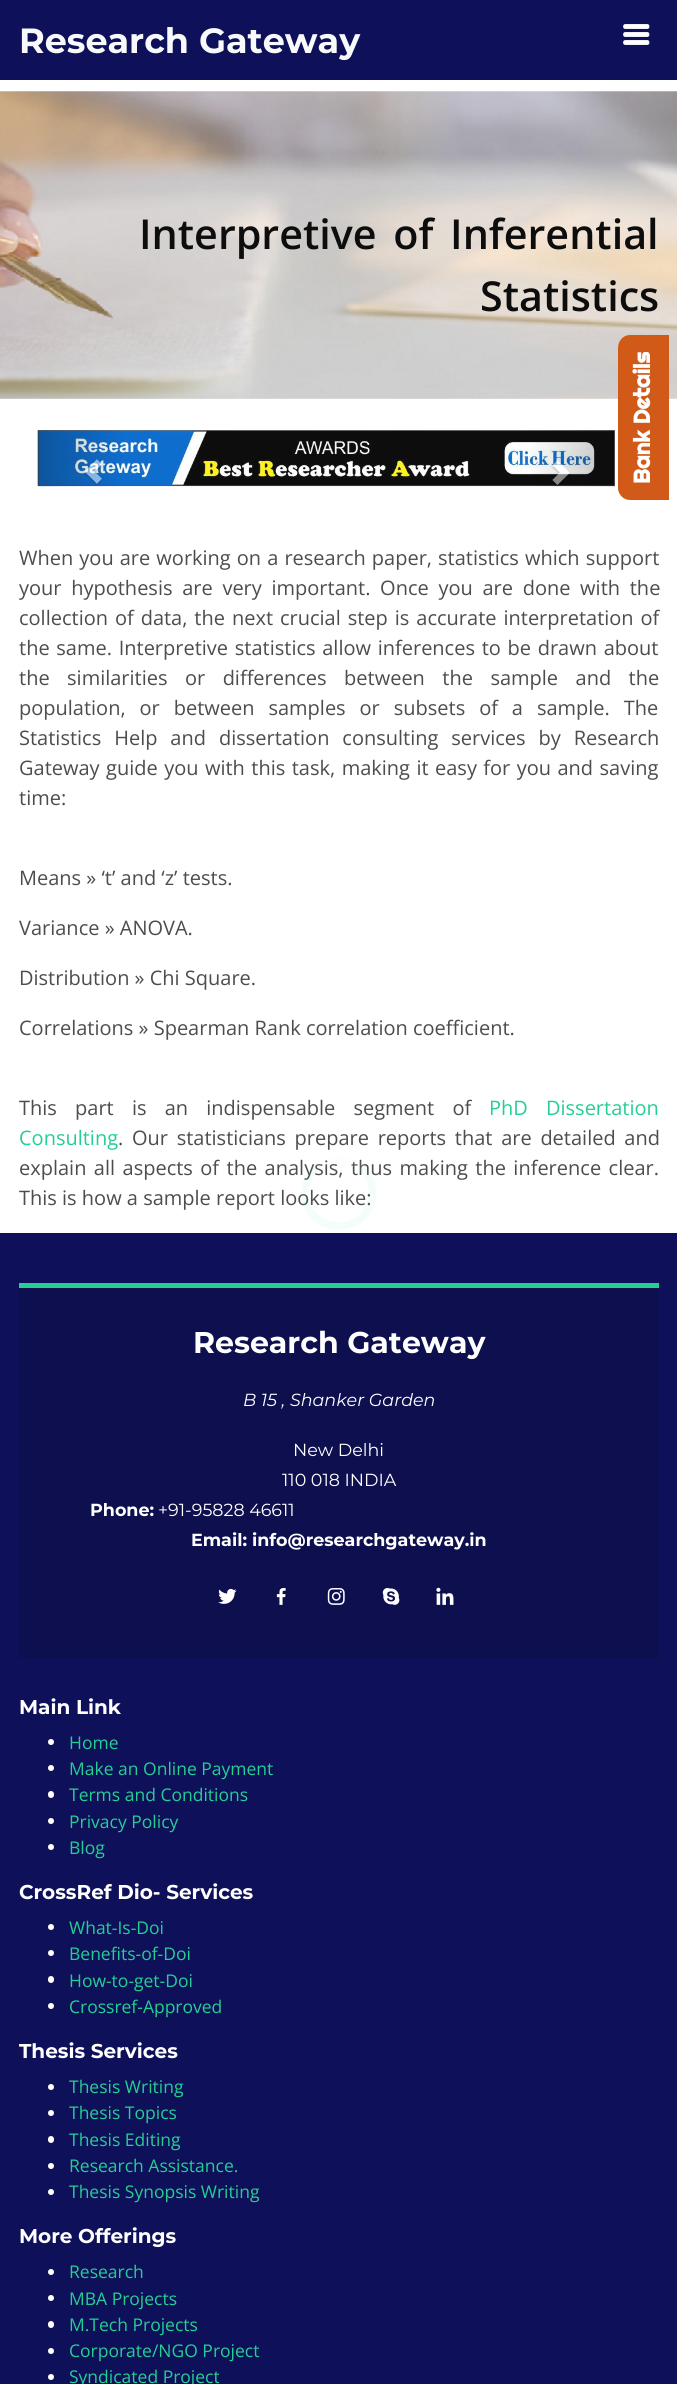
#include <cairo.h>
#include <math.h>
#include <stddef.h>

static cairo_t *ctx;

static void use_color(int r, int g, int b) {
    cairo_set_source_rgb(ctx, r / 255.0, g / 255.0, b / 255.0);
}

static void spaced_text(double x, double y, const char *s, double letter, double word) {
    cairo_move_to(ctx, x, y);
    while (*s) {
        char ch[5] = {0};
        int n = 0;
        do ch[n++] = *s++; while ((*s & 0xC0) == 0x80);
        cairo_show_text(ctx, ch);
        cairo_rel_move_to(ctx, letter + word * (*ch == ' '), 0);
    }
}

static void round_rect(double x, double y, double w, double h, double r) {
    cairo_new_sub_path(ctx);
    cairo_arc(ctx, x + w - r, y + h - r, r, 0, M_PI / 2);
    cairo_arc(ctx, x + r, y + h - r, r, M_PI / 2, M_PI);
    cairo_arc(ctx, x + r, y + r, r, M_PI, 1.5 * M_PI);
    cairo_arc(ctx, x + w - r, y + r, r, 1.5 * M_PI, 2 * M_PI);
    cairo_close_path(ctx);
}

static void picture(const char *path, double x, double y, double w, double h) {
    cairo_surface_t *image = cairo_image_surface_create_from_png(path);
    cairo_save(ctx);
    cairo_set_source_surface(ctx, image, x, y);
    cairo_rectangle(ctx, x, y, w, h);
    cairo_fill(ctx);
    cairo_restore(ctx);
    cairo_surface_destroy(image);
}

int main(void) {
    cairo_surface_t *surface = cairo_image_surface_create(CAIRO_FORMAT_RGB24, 677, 2384);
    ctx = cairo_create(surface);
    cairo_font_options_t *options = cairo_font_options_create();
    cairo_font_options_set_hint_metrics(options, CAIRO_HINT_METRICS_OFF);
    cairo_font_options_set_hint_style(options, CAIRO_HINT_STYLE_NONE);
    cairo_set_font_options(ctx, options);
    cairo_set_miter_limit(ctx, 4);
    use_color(255, 255, 255);
    cairo_paint(ctx);
    use_color(14, 16, 90);
    cairo_rectangle(ctx, 0, 0, 677, 80);
    cairo_fill(ctx);
    picture("img1.png", 623, 24, 27, 21);
    cairo_select_font_face(ctx, "Montserrat", CAIRO_FONT_SLANT_NORMAL, CAIRO_FONT_WEIGHT_BOLD);
    cairo_set_font_size(ctx, 35);
    use_color(248, 249, 250);
    cairo_move_to(ctx, 19, 53);
    cairo_show_text(ctx, "Research Gateway");
    picture("img2.png", 0, 91, 677, 308);
    cairo_select_font_face(ctx, "Open Sans SemiBold", CAIRO_FONT_SLANT_NORMAL, CAIRO_FONT_WEIGHT_NORMAL);
    cairo_set_font_size(ctx, 41.25);
    use_color(13, 13, 13);
    spaced_text(139, 249, "Interpretive of Inferential", 0, 6);
    cairo_move_to(ctx, 480, 311);
    cairo_show_text(ctx, "Statistics");
    use_color(210, 90, 25);
    cairo_new_path(ctx);
    cairo_move_to(ctx, 618, 488);
    cairo_line_to(ctx, 618, 348);
    cairo_curve_to(ctx, 618, 341, 623, 335, 630, 335);
    cairo_line_to(ctx, 669, 335);
    cairo_line_to(ctx, 669, 500);
    cairo_line_to(ctx, 630, 500);
    cairo_curve_to(ctx, 623, 500, 618, 494, 618, 488);
    cairo_close_path(ctx);
    cairo_fill(ctx);
    cairo_select_font_face(ctx, "Righteous", CAIRO_FONT_SLANT_NORMAL, CAIRO_FONT_WEIGHT_BOLD);
    cairo_set_font_size(ctx, 22.5);
    use_color(255, 255, 255);
    cairo_save(ctx);
    cairo_translate(ctx, 650, 484);
    cairo_rotate(ctx, -90 * M_PI / 180);
    cairo_move_to(ctx, 0, 0);
    cairo_show_text(ctx, "Bank Details");
    cairo_restore(ctx);
    picture("img3.png", 37, 430, 578, 57);
    cairo_select_font_face(ctx, "Open Sans", CAIRO_FONT_SLANT_NORMAL, CAIRO_FONT_WEIGHT_NORMAL);
    cairo_set_font_size(ctx, 20);
    use_color(77, 77, 77);
    spaced_text(19, 565, "When you are working on a research paper, statistics which support", 0, 0.9);
    spaced_text(19, 595, "your hypothesis are very important. Once you are done with the", 0, 4.5);
    spaced_text(19, 625, "collection of data, the next crucial step is accurate interpretation of", 0, 1.75);
    spaced_text(19, 655, "the same. Interpretive statistics allow inferences to be drawn about", 0, 1.5);
    spaced_text(19, 685, "the similarities or differences between the sample and the", 0, 12.25);
    spaced_text(19, 715, "population, or between samples or subsets of a sample. The", 0, 8.75);
    spaced_text(19, 745, "Statistics Help and dissertation consulting services by Research", 0, 7.75);
    spaced_text(19, 775, "Gateway guide you with this task, making it easy for you and saving", 0, 1.25);
    cairo_move_to(ctx, 19, 805);
    cairo_show_text(ctx, "time:");
    cairo_move_to(ctx, 19, 885);
    cairo_show_text(ctx, "Means » ‘t’ and ‘z’ tests.");
    cairo_move_to(ctx, 19, 935);
    cairo_show_text(ctx, "Variance » ANOVA.");
    cairo_move_to(ctx, 19, 985);
    cairo_show_text(ctx, "Distribution » Chi Square.");
    cairo_move_to(ctx, 19, 1035);
    cairo_show_text(ctx, "Correlations » Spearman Rank correlation coefficient.");
    spaced_text(19, 1115, "This part is an indispensable segment of", 0, 13);
    use_color(37, 207, 147);
    spaced_text(489, 1115, "PhD Dissertation", 0, 13);
    cairo_move_to(ctx, 19, 1145);
    cairo_show_text(ctx, "Consulting");
    use_color(77, 77, 77);
    spaced_text(118, 1145, ". Our statisticians prepare reports that are detailed and", 0, 3.5);
    spaced_text(19, 1175, "explain all aspects of the analysis, thus making the inference clear.", 0, 2.25);
    cairo_move_to(ctx, 19, 1205);
    cairo_show_text(ctx, "This is how a sample report looks like:");
    cairo_new_path(ctx);
    cairo_move_to(ctx, 315, 1168.5);
    cairo_curve_to(ctx, 328, 1155.5, 349.5, 1155.5, 362.5, 1168.5);
    cairo_set_source_rgba(ctx, 0.824, 0.976, 0.922, 0.05);
    cairo_set_line_width(ctx, 7.5);
    cairo_stroke(ctx);
    cairo_new_path(ctx);
    cairo_move_to(ctx, 362.5, 1168.5);
    cairo_curve_to(ctx, 369, 1175, 372.5, 1183.5, 372.5, 1192.5);
    cairo_curve_to(ctx, 372.5, 1233, 313.5, 1238.5, 305.5, 1199);
    cairo_curve_to(ctx, 303.5, 1188, 307, 1176.5, 315, 1168.5);
    cairo_set_source_rgba(ctx, 0.102, 0.8, 0.553, 0.05);
    cairo_stroke(ctx);
    use_color(14, 16, 90);
    cairo_rectangle(ctx, 0, 1233, 677, 1151);
    cairo_fill(ctx);
    use_color(14, 15, 79);
    cairo_rectangle(ctx, 19, 1288, 640, 370);
    cairo_fill(ctx);
    use_color(37, 207, 147);
    cairo_rectangle(ctx, 19, 1283, 640, 5);
    cairo_fill(ctx);
    cairo_select_font_face(ctx, "Montserrat", CAIRO_FONT_SLANT_NORMAL, CAIRO_FONT_WEIGHT_BOLD);
    cairo_set_font_size(ctx, 30);
    use_color(255, 255, 255);
    cairo_move_to(ctx, 193, 1353);
    cairo_show_text(ctx, "Research Gateway");
    cairo_select_font_face(ctx, "Montserrat", CAIRO_FONT_SLANT_ITALIC, CAIRO_FONT_WEIGHT_NORMAL);
    cairo_set_font_size(ctx, 17.5);
    cairo_move_to(ctx, 243, 1406);
    cairo_show_text(ctx, "B 15 , Shanker Garden");
    cairo_select_font_face(ctx, "Montserrat", CAIRO_FONT_SLANT_NORMAL, CAIRO_FONT_WEIGHT_NORMAL);
    cairo_move_to(ctx, 293, 1456);
    cairo_show_text(ctx, "New Delhi");
    cairo_move_to(ctx, 282, 1486);
    cairo_show_text(ctx, "110 018 INDIA");
    cairo_select_font_face(ctx, "Montserrat", CAIRO_FONT_SLANT_NORMAL, CAIRO_FONT_WEIGHT_BOLD);
    cairo_move_to(ctx, 90, 1516);
    cairo_show_text(ctx, "Phone:");
    cairo_select_font_face(ctx, "Montserrat", CAIRO_FONT_SLANT_NORMAL, CAIRO_FONT_WEIGHT_NORMAL);
    cairo_move_to(ctx, 158, 1516);
    cairo_show_text(ctx, "+91-95828 46611");
    cairo_select_font_face(ctx, "Montserrat", CAIRO_FONT_SLANT_NORMAL, CAIRO_FONT_WEIGHT_BOLD);
    cairo_move_to(ctx, 191, 1546);
    cairo_show_text(ctx, "Email: info@researchgateway.in");
    picture("img4.png", 218, 1588, 19, 16);
    picture("img5.png", 276, 1588, 10, 17);
    picture("img6.png", 327, 1588, 18, 17);
    picture("img7.png", 382, 1588, 18, 17);
    picture("img8.png", 436, 1587, 18, 18);
    cairo_set_font_size(ctx, 20);
    cairo_move_to(ctx, 19, 1714);
    cairo_show_text(ctx, "Main Link");
    cairo_new_path(ctx);
    cairo_arc(ctx, 51, 1742, 3, 0, 2 * M_PI);
    cairo_fill(ctx);
    cairo_select_font_face(ctx, "Open Sans", CAIRO_FONT_SLANT_NORMAL, CAIRO_FONT_WEIGHT_NORMAL);
    cairo_set_font_size(ctx, 17.5);
    use_color(37, 207, 147);
    cairo_move_to(ctx, 69, 1749);
    cairo_show_text(ctx, "Home");
    use_color(255, 255, 255);
    cairo_new_path(ctx);
    cairo_arc(ctx, 51, 1768, 3, 0, 2 * M_PI);
    cairo_fill(ctx);
    use_color(37, 207, 147);
    cairo_move_to(ctx, 69, 1775);
    cairo_show_text(ctx, "Make an Online Payment");
    use_color(255, 255, 255);
    round_rect(48, 1791, 6, 7, 3);
    cairo_fill(ctx);
    use_color(37, 207, 147);
    cairo_move_to(ctx, 69, 1801);
    cairo_show_text(ctx, "Terms and Conditions");
    use_color(255, 255, 255);
    cairo_new_path(ctx);
    cairo_arc(ctx, 51, 1821, 3, 0, 2 * M_PI);
    cairo_fill(ctx);
    use_color(37, 207, 147);
    cairo_move_to(ctx, 69, 1828);
    cairo_show_text(ctx, "Privacy Policy");
    use_color(255, 255, 255);
    cairo_new_path(ctx);
    cairo_arc(ctx, 51, 1847, 3, 0, 2 * M_PI);
    cairo_fill(ctx);
    use_color(37, 207, 147);
    cairo_move_to(ctx, 69, 1854);
    cairo_show_text(ctx, "Blog");
    cairo_select_font_face(ctx, "Montserrat", CAIRO_FONT_SLANT_NORMAL, CAIRO_FONT_WEIGHT_BOLD);
    cairo_set_font_size(ctx, 20);
    use_color(255, 255, 255);
    cairo_move_to(ctx, 19, 1899);
    cairo_show_text(ctx, "CrossRef Dio- Services");
    cairo_new_path(ctx);
    cairo_arc(ctx, 51, 1927, 3, 0, 2 * M_PI);
    cairo_fill(ctx);
    cairo_select_font_face(ctx, "Open Sans", CAIRO_FONT_SLANT_NORMAL, CAIRO_FONT_WEIGHT_NORMAL);
    cairo_set_font_size(ctx, 17.5);
    use_color(37, 207, 147);
    cairo_move_to(ctx, 69, 1934);
    cairo_show_text(ctx, "What-Is-Doi");
    use_color(255, 255, 255);
    cairo_new_path(ctx);
    cairo_arc(ctx, 51, 1953, 3, 0, 2 * M_PI);
    cairo_fill(ctx);
    use_color(37, 207, 147);
    cairo_move_to(ctx, 69, 1960);
    cairo_show_text(ctx, "Benefits-of-Doi");
    use_color(255, 255, 255);
    round_rect(48, 1976, 6, 7, 3);
    cairo_fill(ctx);
    use_color(37, 207, 147);
    cairo_move_to(ctx, 69, 1987);
    cairo_show_text(ctx, "How-to-get-Doi");
    use_color(255, 255, 255);
    cairo_new_path(ctx);
    cairo_arc(ctx, 51, 2006, 3, 0, 2 * M_PI);
    cairo_fill(ctx);
    use_color(37, 207, 147);
    cairo_move_to(ctx, 69, 2013);
    cairo_show_text(ctx, "Crossref-Approved");
    cairo_select_font_face(ctx, "Montserrat", CAIRO_FONT_SLANT_NORMAL, CAIRO_FONT_WEIGHT_BOLD);
    cairo_set_font_size(ctx, 20);
    use_color(255, 255, 255);
    cairo_move_to(ctx, 19, 2058);
    cairo_show_text(ctx, "Thesis Services");
    cairo_new_path(ctx);
    cairo_arc(ctx, 51, 2087, 3, 0, 2 * M_PI);
    cairo_fill(ctx);
    cairo_select_font_face(ctx, "Open Sans", CAIRO_FONT_SLANT_NORMAL, CAIRO_FONT_WEIGHT_NORMAL);
    cairo_set_font_size(ctx, 17.5);
    use_color(37, 207, 147);
    cairo_move_to(ctx, 69, 2093);
    cairo_show_text(ctx, "Thesis Writing");
    use_color(255, 255, 255);
    cairo_new_path(ctx);
    cairo_arc(ctx, 51, 2113, 3, 0, 2 * M_PI);
    cairo_fill(ctx);
    use_color(37, 207, 147);
    cairo_move_to(ctx, 69, 2119);
    cairo_show_text(ctx, "Thesis Topics");
    use_color(255, 255, 255);
    round_rect(48, 2136, 6, 7, 3);
    cairo_fill(ctx);
    use_color(37, 207, 147);
    cairo_move_to(ctx, 69, 2146);
    cairo_show_text(ctx, "Thesis Editing");
    use_color(255, 255, 255);
    cairo_new_path(ctx);
    cairo_arc(ctx, 51, 2166, 3, 0, 2 * M_PI);
    cairo_fill(ctx);
    use_color(37, 207, 147);
    cairo_move_to(ctx, 69, 2172);
    cairo_show_text(ctx, "Research Assistance.");
    use_color(255, 255, 255);
    cairo_new_path(ctx);
    cairo_arc(ctx, 51, 2192, 3, 0, 2 * M_PI);
    cairo_fill(ctx);
    use_color(37, 207, 147);
    cairo_move_to(ctx, 69, 2198);
    cairo_show_text(ctx, "Thesis Synopsis Writing");
    cairo_select_font_face(ctx, "Montserrat", CAIRO_FONT_SLANT_NORMAL, CAIRO_FONT_WEIGHT_BOLD);
    cairo_set_font_size(ctx, 20);
    use_color(255, 255, 255);
    cairo_move_to(ctx, 19, 2243);
    cairo_show_text(ctx, "More Offerings");
    cairo_new_path(ctx);
    cairo_arc(ctx, 51, 2272, 3, 0, 2 * M_PI);
    cairo_fill(ctx);
    cairo_select_font_face(ctx, "Open Sans", CAIRO_FONT_SLANT_NORMAL, CAIRO_FONT_WEIGHT_NORMAL);
    cairo_set_font_size(ctx, 17.5);
    use_color(37, 207, 147);
    cairo_move_to(ctx, 69, 2278);
    cairo_show_text(ctx, "Research");
    use_color(255, 255, 255);
    cairo_new_path(ctx);
    cairo_arc(ctx, 51, 2298, 3, 0, 2 * M_PI);
    cairo_fill(ctx);
    use_color(37, 207, 147);
    cairo_move_to(ctx, 69, 2305);
    cairo_show_text(ctx, "MBA Projects");
    use_color(255, 255, 255);
    round_rect(48, 2321, 6, 7, 3);
    cairo_fill(ctx);
    use_color(37, 207, 147);
    cairo_move_to(ctx, 69, 2331);
    cairo_show_text(ctx, "M.Tech Projects");
    use_color(255, 255, 255);
    cairo_new_path(ctx);
    cairo_arc(ctx, 51, 2351, 3, 0, 2 * M_PI);
    cairo_fill(ctx);
    use_color(37, 207, 147);
    cairo_move_to(ctx, 69, 2357);
    cairo_show_text(ctx, "Corporate/NGO Project");
    use_color(255, 255, 255);
    cairo_new_path(ctx);
    cairo_arc(ctx, 51, 2377, 3, 0, 2 * M_PI);
    cairo_fill(ctx);
    use_color(37, 207, 147);
    cairo_move_to(ctx, 69, 2383);
    cairo_show_text(ctx, "Syndicated Project");
    cairo_surface_write_to_png(surface, "result.png");
    cairo_font_options_destroy(options);
    cairo_destroy(ctx);
    cairo_surface_destroy(surface);
    return 0;
}
